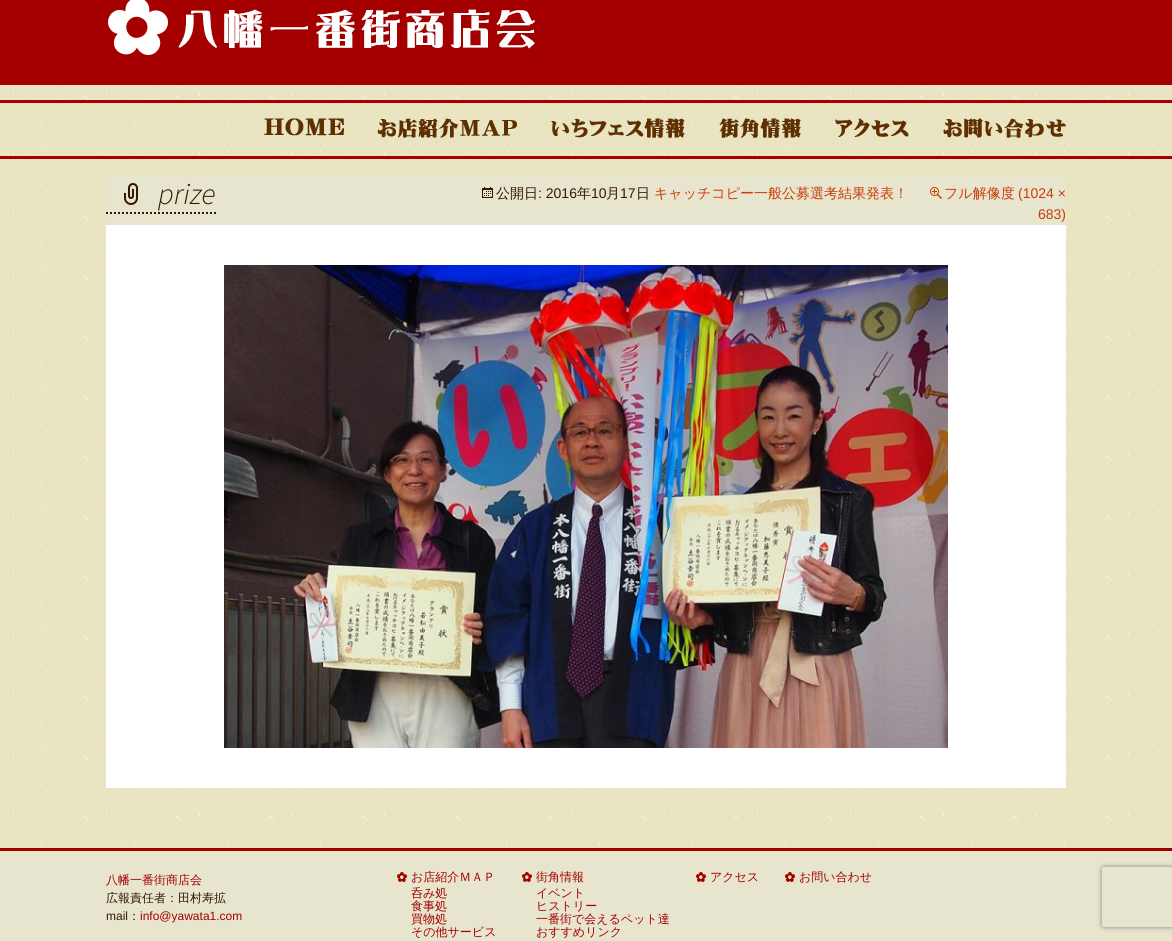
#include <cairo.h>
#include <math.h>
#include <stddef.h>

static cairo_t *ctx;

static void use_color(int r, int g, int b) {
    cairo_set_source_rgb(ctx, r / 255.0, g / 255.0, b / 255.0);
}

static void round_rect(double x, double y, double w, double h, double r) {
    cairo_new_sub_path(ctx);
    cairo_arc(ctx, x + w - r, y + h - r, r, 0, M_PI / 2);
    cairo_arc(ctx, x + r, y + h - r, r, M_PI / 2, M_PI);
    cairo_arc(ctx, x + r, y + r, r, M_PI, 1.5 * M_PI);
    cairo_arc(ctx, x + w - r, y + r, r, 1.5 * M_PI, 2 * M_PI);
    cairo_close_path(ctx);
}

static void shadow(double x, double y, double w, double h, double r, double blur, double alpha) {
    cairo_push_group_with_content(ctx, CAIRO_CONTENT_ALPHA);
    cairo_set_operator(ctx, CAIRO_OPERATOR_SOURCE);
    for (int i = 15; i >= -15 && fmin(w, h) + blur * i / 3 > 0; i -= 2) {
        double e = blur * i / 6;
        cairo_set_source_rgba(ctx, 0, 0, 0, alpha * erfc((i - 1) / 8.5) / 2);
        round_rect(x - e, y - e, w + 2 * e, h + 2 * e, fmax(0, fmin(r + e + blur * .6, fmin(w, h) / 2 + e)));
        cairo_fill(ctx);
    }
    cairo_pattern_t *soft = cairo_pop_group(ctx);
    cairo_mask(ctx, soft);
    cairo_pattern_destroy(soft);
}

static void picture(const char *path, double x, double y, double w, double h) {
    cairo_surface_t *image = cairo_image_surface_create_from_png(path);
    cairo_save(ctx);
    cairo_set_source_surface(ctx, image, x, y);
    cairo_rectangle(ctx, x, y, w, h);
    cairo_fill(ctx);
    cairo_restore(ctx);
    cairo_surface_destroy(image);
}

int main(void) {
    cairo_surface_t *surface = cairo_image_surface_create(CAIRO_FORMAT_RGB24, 1172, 941);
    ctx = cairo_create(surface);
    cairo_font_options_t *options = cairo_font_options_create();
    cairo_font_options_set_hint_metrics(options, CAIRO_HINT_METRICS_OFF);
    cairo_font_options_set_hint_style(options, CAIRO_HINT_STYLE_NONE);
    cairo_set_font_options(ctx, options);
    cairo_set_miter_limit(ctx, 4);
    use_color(255, 255, 255);
    cairo_paint(ctx);
    picture("img1.png", 0, 85, 1172, 763);
    use_color(164, 0, 0);
    cairo_rectangle(ctx, 0, 0, 1172, 85);
    cairo_fill(ctx);
    picture("img2.png", 108, 0, 427, 55);
    cairo_rectangle(ctx, 0, 100, 1172, 3);
    cairo_fill(ctx);
    cairo_rectangle(ctx, 0, 156, 1172, 3);
    cairo_fill(ctx);
    picture("img3.png", 264, 118, 80, 18);
    picture("img4.png", 377, 118, 140, 20);
    picture("img5.png", 551, 118, 134, 20);
    picture("img6.png", 719, 118, 82, 20);
    picture("img7.png", 835, 118, 74, 19);
    picture("img8.png", 943, 118, 123, 20);
    use_color(232, 229, 206);
    cairo_rectangle(ctx, 106, 174, 960, 51);
    cairo_fill(ctx);
    cairo_new_path(ctx);
    cairo_move_to(ctx, 106, 213);
    cairo_line_to(ctx, 216, 213);
    use_color(50, 26, 0);
    cairo_set_dash(ctx, (double[]){2, 2}, 2, 0);
    cairo_stroke(ctx);
    picture("img9.png", 124, 183, 14, 22);
    cairo_select_font_face(ctx, "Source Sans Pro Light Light", CAIRO_FONT_SLANT_ITALIC, CAIRO_FONT_WEIGHT_NORMAL);
    cairo_set_font_size(ctx, 30);
    cairo_move_to(ctx, 158, 204);
    cairo_show_text(ctx, "prize");
    picture("img10.png", 482, 187, 11, 11);
    cairo_select_font_face(ctx, "WenQuanYi Zen Hei Medium", CAIRO_FONT_SLANT_NORMAL, CAIRO_FONT_WEIGHT_NORMAL);
    cairo_set_font_size(ctx, 14);
    cairo_move_to(ctx, 496, 198);
    cairo_show_text(ctx, "公開日");
    cairo_select_font_face(ctx, "Liberation Sans", CAIRO_FONT_SLANT_NORMAL, CAIRO_FONT_WEIGHT_NORMAL);
    cairo_move_to(ctx, 538, 198);
    cairo_show_text(ctx, ": 2016");
    cairo_select_font_face(ctx, "WenQuanYi Zen Hei Medium", CAIRO_FONT_SLANT_NORMAL, CAIRO_FONT_WEIGHT_NORMAL);
    cairo_move_to(ctx, 577, 198);
    cairo_show_text(ctx, "年");
    cairo_select_font_face(ctx, "Liberation Sans", CAIRO_FONT_SLANT_NORMAL, CAIRO_FONT_WEIGHT_NORMAL);
    cairo_move_to(ctx, 591, 198);
    cairo_show_text(ctx, "10");
    cairo_select_font_face(ctx, "WenQuanYi Zen Hei Medium", CAIRO_FONT_SLANT_NORMAL, CAIRO_FONT_WEIGHT_NORMAL);
    cairo_move_to(ctx, 606, 198);
    cairo_show_text(ctx, "月");
    cairo_select_font_face(ctx, "Liberation Sans", CAIRO_FONT_SLANT_NORMAL, CAIRO_FONT_WEIGHT_NORMAL);
    cairo_move_to(ctx, 620, 198);
    cairo_show_text(ctx, "17");
    cairo_select_font_face(ctx, "WenQuanYi Zen Hei Medium", CAIRO_FONT_SLANT_NORMAL, CAIRO_FONT_WEIGHT_NORMAL);
    cairo_move_to(ctx, 636, 198);
    cairo_show_text(ctx, "日");
    use_color(202, 60, 8);
    cairo_move_to(ctx, 654, 198);
    cairo_show_text(ctx, "キャッチコピー一般公募選考結果発表！");
    picture("img11.png", 930, 187, 12, 12);
    cairo_move_to(ctx, 944, 198);
    cairo_show_text(ctx, "フル解像度");
    cairo_select_font_face(ctx, "Liberation Sans", CAIRO_FONT_SLANT_NORMAL, CAIRO_FONT_WEIGHT_NORMAL);
    cairo_move_to(ctx, 1018, 198);
    cairo_show_text(ctx, "(1024 ×");
    cairo_move_to(ctx, 1038, 219);
    cairo_show_text(ctx, "683)");
    use_color(255, 255, 255);
    cairo_rectangle(ctx, 106, 225, 960, 563);
    cairo_fill(ctx);
    picture("img12.png", 224, 265, 724, 483);
    use_color(232, 229, 206);
    cairo_rectangle(ctx, 0, 851, 1172, 90);
    cairo_fill(ctx);
    use_color(164, 0, 0);
    cairo_rectangle(ctx, 0, 848, 1172, 3);
    cairo_fill(ctx);
    cairo_select_font_face(ctx, "WenQuanYi Zen Hei Medium", CAIRO_FONT_SLANT_NORMAL, CAIRO_FONT_WEIGHT_NORMAL);
    cairo_set_font_size(ctx, 12);
    cairo_move_to(ctx, 106, 884);
    cairo_show_text(ctx, "八幡一番街商店会");
    use_color(50, 26, 0);
    cairo_move_to(ctx, 106, 902);
    cairo_show_text(ctx, "広報責任者：田村寿拡");
    cairo_select_font_face(ctx, "Liberation Sans", CAIRO_FONT_SLANT_NORMAL, CAIRO_FONT_WEIGHT_NORMAL);
    cairo_move_to(ctx, 106, 920);
    cairo_show_text(ctx, "mail");
    cairo_select_font_face(ctx, "WenQuanYi Zen Hei Medium", CAIRO_FONT_SLANT_NORMAL, CAIRO_FONT_WEIGHT_NORMAL);
    cairo_move_to(ctx, 128, 920);
    cairo_show_text(ctx, "：");
    cairo_select_font_face(ctx, "Liberation Sans", CAIRO_FONT_SLANT_NORMAL, CAIRO_FONT_WEIGHT_NORMAL);
    use_color(164, 0, 0);
    cairo_move_to(ctx, 140, 920);
    cairo_show_text(ctx, "info@yawata1.com");
    picture("img13.png", 396, 871, 12, 12);
    cairo_select_font_face(ctx, "WenQuanYi Zen Hei Medium", CAIRO_FONT_SLANT_NORMAL, CAIRO_FONT_WEIGHT_NORMAL);
    cairo_move_to(ctx, 411, 881);
    cairo_show_text(ctx, "お店紹介ＭＡＰ");
    cairo_move_to(ctx, 411, 897);
    cairo_show_text(ctx, "呑み処");
    cairo_move_to(ctx, 411, 910);
    cairo_show_text(ctx, "食事処");
    cairo_move_to(ctx, 411, 923);
    cairo_show_text(ctx, "買物処");
    cairo_move_to(ctx, 411, 936);
    cairo_show_text(ctx, "その他サービス");
    picture("img13.png", 521, 871, 12, 12);
    cairo_move_to(ctx, 536, 881);
    cairo_show_text(ctx, "街角情報");
    cairo_move_to(ctx, 536, 897);
    cairo_show_text(ctx, "イベント");
    cairo_move_to(ctx, 536, 910);
    cairo_show_text(ctx, "ヒストリー");
    cairo_move_to(ctx, 536, 923);
    cairo_show_text(ctx, "一番街で会えるペット達");
    cairo_move_to(ctx, 536, 936);
    cairo_show_text(ctx, "おすすめリンク");
    picture("img13.png", 695, 871, 12, 12);
    cairo_move_to(ctx, 710, 881);
    cairo_show_text(ctx, "アクセス");
    picture("img13.png", 784, 871, 12, 12);
    cairo_move_to(ctx, 799, 881);
    cairo_show_text(ctx, "お問い合わせ");
    cairo_save(ctx);
    cairo_set_fill_rule(ctx, CAIRO_FILL_RULE_EVEN_ODD);
    cairo_new_path(ctx);
    cairo_move_to(ctx, 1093, 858);
    cairo_line_to(ctx, 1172, 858);
    cairo_line_to(ctx, 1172, 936);
    cairo_line_to(ctx, 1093, 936);
    cairo_close_path(ctx);
    cairo_move_to(ctx, 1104, 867);
    cairo_line_to(ctx, 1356, 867);
    cairo_curve_to(ctx, 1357, 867, 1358, 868, 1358, 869);
    cairo_line_to(ctx, 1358, 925);
    cairo_curve_to(ctx, 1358, 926, 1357, 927, 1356, 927);
    cairo_line_to(ctx, 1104, 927);
    cairo_curve_to(ctx, 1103, 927, 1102, 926, 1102, 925);
    cairo_line_to(ctx, 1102, 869);
    cairo_curve_to(ctx, 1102, 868, 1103, 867, 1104, 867);
    cairo_close_path(ctx);
    cairo_clip(ctx);
    use_color(128, 128, 128);
    shadow(1102, 867, 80, 60, 2, 2.5, 1);
    cairo_restore(ctx);
    cairo_surface_write_to_png(surface, "result.png");
    cairo_font_options_destroy(options);
    cairo_destroy(ctx);
    cairo_surface_destroy(surface);
    return 0;
}
